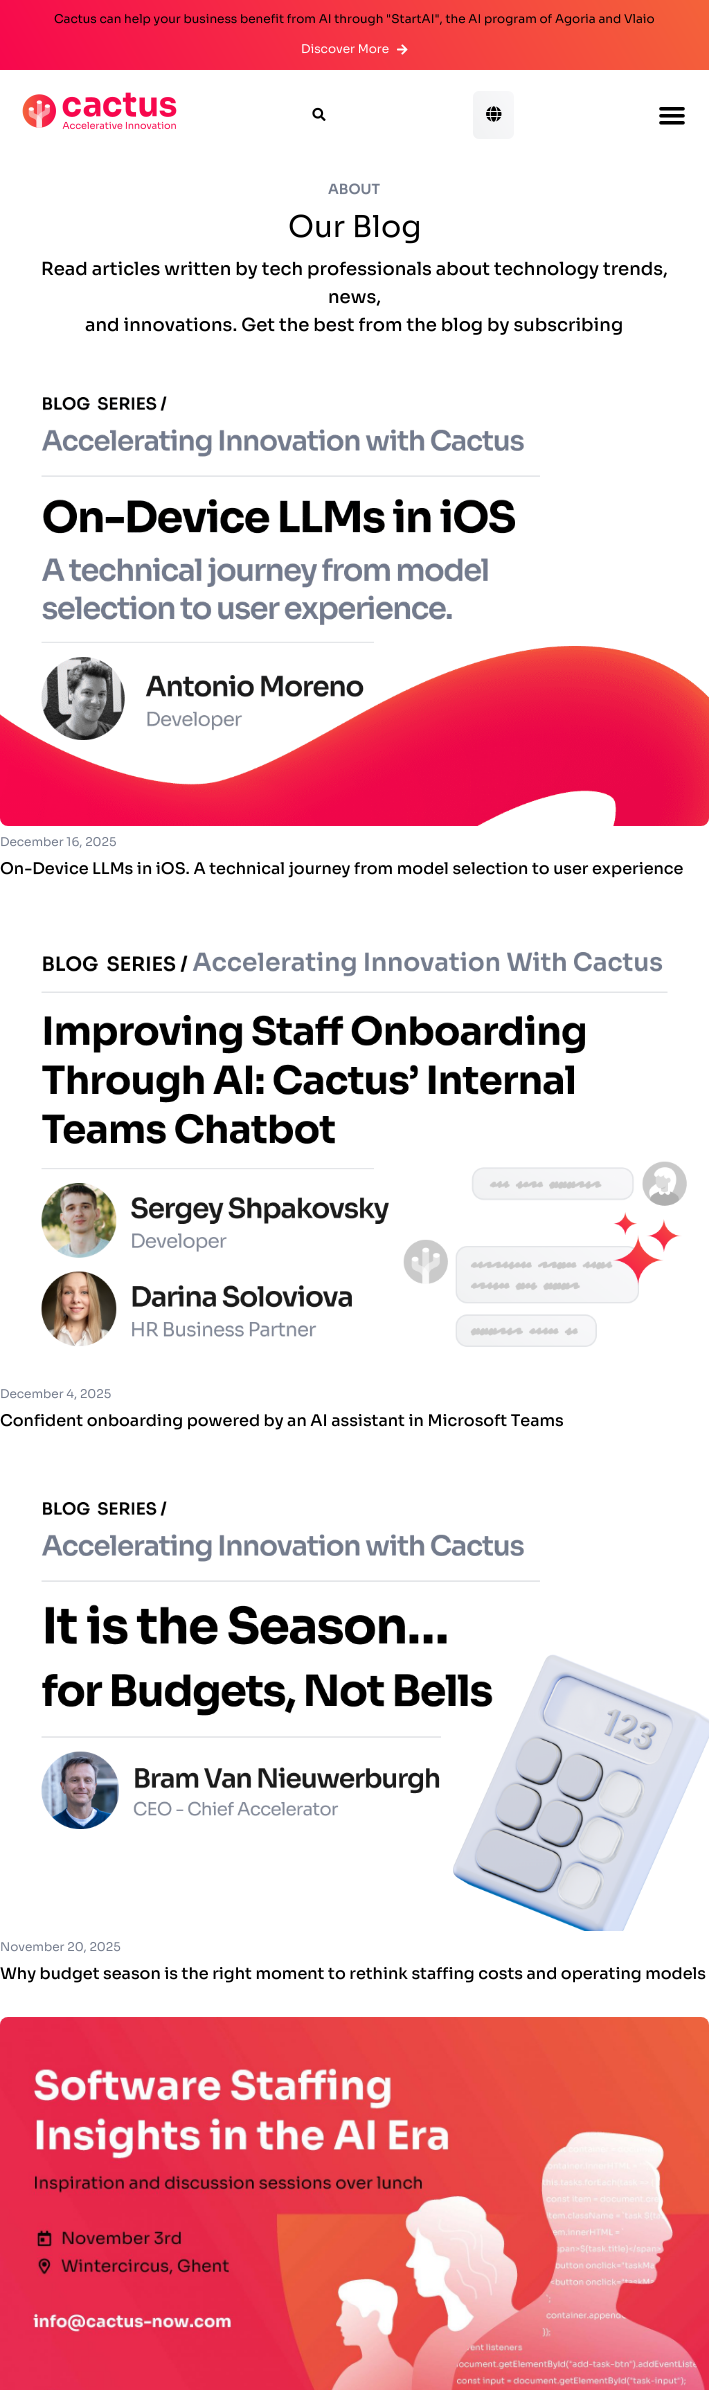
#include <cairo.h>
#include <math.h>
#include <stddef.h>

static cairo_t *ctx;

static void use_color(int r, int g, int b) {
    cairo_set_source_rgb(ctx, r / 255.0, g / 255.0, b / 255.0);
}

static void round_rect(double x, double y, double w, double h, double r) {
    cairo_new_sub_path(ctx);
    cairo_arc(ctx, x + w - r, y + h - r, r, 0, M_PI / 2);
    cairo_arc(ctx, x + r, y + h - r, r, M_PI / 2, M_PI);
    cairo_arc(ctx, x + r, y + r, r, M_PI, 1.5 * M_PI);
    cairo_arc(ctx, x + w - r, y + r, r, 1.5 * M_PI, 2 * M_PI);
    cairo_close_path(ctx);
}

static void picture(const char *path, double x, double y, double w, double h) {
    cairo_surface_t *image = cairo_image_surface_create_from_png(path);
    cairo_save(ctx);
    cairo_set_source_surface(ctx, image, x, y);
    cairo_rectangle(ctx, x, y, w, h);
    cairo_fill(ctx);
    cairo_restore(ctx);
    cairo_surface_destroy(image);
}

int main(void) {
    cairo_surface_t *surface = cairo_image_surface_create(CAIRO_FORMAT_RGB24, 709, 2390);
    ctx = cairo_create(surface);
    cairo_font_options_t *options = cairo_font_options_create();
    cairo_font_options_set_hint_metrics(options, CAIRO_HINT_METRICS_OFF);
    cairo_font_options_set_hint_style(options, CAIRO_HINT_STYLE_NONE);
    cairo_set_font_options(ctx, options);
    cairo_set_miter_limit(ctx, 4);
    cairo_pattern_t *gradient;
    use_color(255, 255, 255);
    cairo_paint(ctx);
    gradient = cairo_pattern_create_linear(636, -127, 73, 197);
    cairo_pattern_add_color_stop_rgba(gradient, 0, 0.957, 0.388, 0.227, 1);
    cairo_pattern_add_color_stop_rgba(gradient, 1, 0.969, 0.027, 0.302, 1);
    cairo_set_source(ctx, gradient);
    cairo_pattern_destroy(gradient);
    cairo_rectangle(ctx, 0, 0, 709, 70);
    cairo_fill(ctx);
    cairo_select_font_face(ctx, "Sora", CAIRO_FONT_SLANT_NORMAL, CAIRO_FONT_WEIGHT_NORMAL);
    cairo_set_font_size(ctx, 12);
    use_color(0, 0, 0);
    cairo_move_to(ctx, 54, 23);
    cairo_show_text(ctx, "Cactus can help your business benefit from AI through \"StartAI\", the AI program of Agoria and Vlaio");
    use_color(255, 255, 255);
    cairo_move_to(ctx, 301, 53);
    cairo_show_text(ctx, "Discover More");
    picture("img1.png", 397, 44, 11, 11);
    picture("img2.png", 22, 92, 155, 38);
    picture("img3.png", 312, 107, 14, 14);
    gradient = cairo_pattern_create_linear(519, 100, 468, 130);
    cairo_pattern_add_color_stop_rgba(gradient, 0, 0.973, 0.973, 0.98, 1);
    cairo_pattern_add_color_stop_rgba(gradient, 1, 0.945, 0.949, 0.953, 1);
    cairo_set_source(ctx, gradient);
    cairo_pattern_destroy(gradient);
    round_rect(473, 91, 41, 48, 6);
    cairo_fill(ctx);
    picture("img4.png", 486, 106, 16, 16);
    picture("img5.png", 659, 107, 26, 18);
    cairo_select_font_face(ctx, "Sora SemiBold", CAIRO_FONT_SLANT_NORMAL, CAIRO_FONT_WEIGHT_NORMAL);
    cairo_set_font_size(ctx, 14);
    use_color(115, 123, 140);
    cairo_move_to(ctx, 328, 194);
    cairo_show_text(ctx, "ABOUT");
    cairo_select_font_face(ctx, "Sora", CAIRO_FONT_SLANT_NORMAL, CAIRO_FONT_WEIGHT_NORMAL);
    cairo_set_font_size(ctx, 30);
    use_color(0, 0, 0);
    cairo_move_to(ctx, 288, 237);
    cairo_show_text(ctx, "Our Blog");
    cairo_select_font_face(ctx, "Sora Medium", CAIRO_FONT_SLANT_NORMAL, CAIRO_FONT_WEIGHT_NORMAL);
    cairo_set_font_size(ctx, 18);
    cairo_move_to(ctx, 41, 275);
    cairo_show_text(ctx, "Read articles written by tech professionals about technology trends,");
    cairo_move_to(ctx, 328, 303);
    cairo_show_text(ctx, "news,");
    cairo_move_to(ctx, 85, 331);
    cairo_show_text(ctx, "and innovations. Get the best from the blog by subscribing");
    picture("img6.png", 0, 396, 709, 430);
    cairo_select_font_face(ctx, "Sora", CAIRO_FONT_SLANT_NORMAL, CAIRO_FONT_WEIGHT_NORMAL);
    cairo_set_font_size(ctx, 12);
    use_color(115, 123, 140);
    cairo_move_to(ctx, 0, 846);
    cairo_show_text(ctx, "December 16, 2025");
    cairo_select_font_face(ctx, "Sora Medium", CAIRO_FONT_SLANT_NORMAL, CAIRO_FONT_WEIGHT_NORMAL);
    cairo_set_font_size(ctx, 16);
    use_color(0, 0, 0);
    cairo_move_to(ctx, 0, 874);
    cairo_show_text(ctx, "On-Device LLMs in iOS. A technical journey from model selection to user experience");
    picture("img7.png", 41, 951, 646, 396);
    cairo_select_font_face(ctx, "Sora", CAIRO_FONT_SLANT_NORMAL, CAIRO_FONT_WEIGHT_NORMAL);
    cairo_set_font_size(ctx, 12);
    use_color(115, 123, 140);
    cairo_move_to(ctx, 0, 1398);
    cairo_show_text(ctx, "December 4, 2025");
    cairo_select_font_face(ctx, "Sora Medium", CAIRO_FONT_SLANT_NORMAL, CAIRO_FONT_WEIGHT_NORMAL);
    cairo_set_font_size(ctx, 16);
    use_color(0, 0, 0);
    cairo_move_to(ctx, 0, 1426);
    cairo_show_text(ctx, "Confident onboarding powered by an AI assistant in Microsoft Teams");
    picture("img8.png", 41, 1501, 668, 430);
    cairo_select_font_face(ctx, "Sora", CAIRO_FONT_SLANT_NORMAL, CAIRO_FONT_WEIGHT_NORMAL);
    cairo_set_font_size(ctx, 12);
    use_color(115, 123, 140);
    cairo_move_to(ctx, 0, 1951);
    cairo_show_text(ctx, "November 20, 2025");
    cairo_select_font_face(ctx, "Sora Medium", CAIRO_FONT_SLANT_NORMAL, CAIRO_FONT_WEIGHT_NORMAL);
    cairo_set_font_size(ctx, 16);
    use_color(0, 0, 0);
    cairo_move_to(ctx, 0, 1979);
    cairo_show_text(ctx, "Why budget season is the right moment to rethink staffing costs and operating models");
    picture("img9.png", 0, 2017, 709, 373);
    cairo_surface_write_to_png(surface, "result.png");
    cairo_font_options_destroy(options);
    cairo_destroy(ctx);
    cairo_surface_destroy(surface);
    return 0;
}
